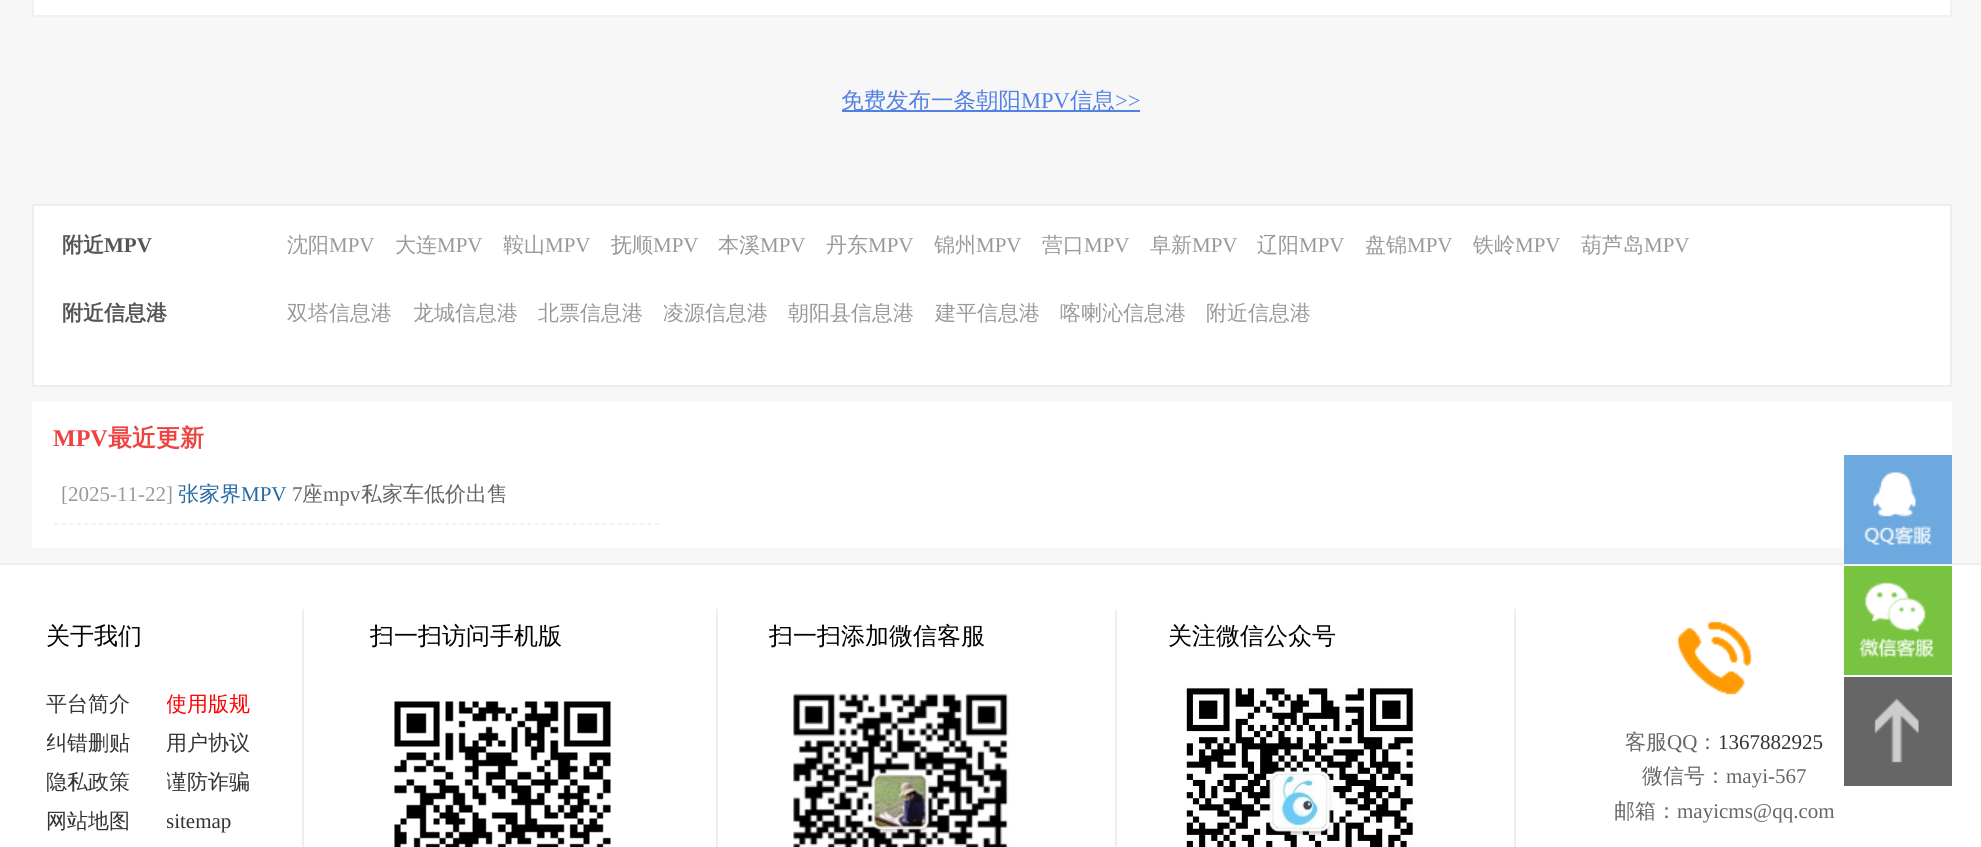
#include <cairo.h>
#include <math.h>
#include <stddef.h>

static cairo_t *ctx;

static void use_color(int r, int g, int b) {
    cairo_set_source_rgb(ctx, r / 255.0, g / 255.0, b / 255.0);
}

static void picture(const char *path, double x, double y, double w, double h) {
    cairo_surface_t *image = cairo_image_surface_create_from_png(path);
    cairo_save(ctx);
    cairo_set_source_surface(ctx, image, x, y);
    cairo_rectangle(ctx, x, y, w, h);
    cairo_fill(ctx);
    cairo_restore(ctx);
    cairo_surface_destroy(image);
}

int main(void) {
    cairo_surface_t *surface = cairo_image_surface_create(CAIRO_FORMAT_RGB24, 1981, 847);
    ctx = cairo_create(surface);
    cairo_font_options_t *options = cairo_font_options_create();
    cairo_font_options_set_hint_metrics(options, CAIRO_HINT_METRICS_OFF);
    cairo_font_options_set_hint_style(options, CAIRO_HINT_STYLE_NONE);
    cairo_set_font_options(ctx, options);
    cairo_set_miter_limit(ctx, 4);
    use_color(255, 255, 255);
    cairo_paint(ctx);
    use_color(247, 247, 247);
    cairo_rectangle(ctx, 0, 0, 1981, 563);
    cairo_fill(ctx);
    use_color(255, 255, 255);
    cairo_rectangle(ctx, 34, 0, 1916, 15);
    cairo_fill(ctx);
    use_color(240, 240, 240);
    cairo_rectangle(ctx, 1950, 0, 2, 17);
    cairo_fill(ctx);
    cairo_rectangle(ctx, 32, 0, 2, 17);
    cairo_fill(ctx);
    cairo_rectangle(ctx, 33, 15, 1917, 2);
    cairo_fill(ctx);
    use_color(82, 129, 228);
    cairo_rectangle(ctx, 842, 110, 298, 2);
    cairo_fill(ctx);
    cairo_select_font_face(ctx, "WenQuanYi Zen Hei Medium", CAIRO_FONT_SLANT_NORMAL, CAIRO_FONT_WEIGHT_NORMAL);
    cairo_set_font_size(ctx, 22.5);
    cairo_move_to(ctx, 841, 108);
    cairo_show_text(ctx, "免费发布一条朝阳");
    cairo_select_font_face(ctx, "Liberation Serif", CAIRO_FONT_SLANT_NORMAL, CAIRO_FONT_WEIGHT_NORMAL);
    cairo_move_to(ctx, 1021, 108);
    cairo_show_text(ctx, "MPV");
    cairo_select_font_face(ctx, "WenQuanYi Zen Hei Medium", CAIRO_FONT_SLANT_NORMAL, CAIRO_FONT_WEIGHT_NORMAL);
    cairo_move_to(ctx, 1070, 108);
    cairo_show_text(ctx, "信息");
    cairo_select_font_face(ctx, "Liberation Serif", CAIRO_FONT_SLANT_NORMAL, CAIRO_FONT_WEIGHT_NORMAL);
    cairo_move_to(ctx, 1115, 108);
    cairo_show_text(ctx, ">>");
    use_color(255, 255, 255);
    cairo_rectangle(ctx, 33, 205, 1918, 181);
    cairo_fill_preserve(ctx);
    use_color(238, 238, 238);
    cairo_stroke(ctx);
    cairo_select_font_face(ctx, "WenQuanYi Zen Hei", CAIRO_FONT_SLANT_NORMAL, CAIRO_FONT_WEIGHT_BOLD);
    cairo_set_font_size(ctx, 21);
    use_color(85, 85, 85);
    cairo_move_to(ctx, 62, 252);
    cairo_show_text(ctx, "附近");
    cairo_select_font_face(ctx, "Liberation Serif", CAIRO_FONT_SLANT_NORMAL, CAIRO_FONT_WEIGHT_BOLD);
    cairo_move_to(ctx, 104, 252);
    cairo_show_text(ctx, "MPV");
    cairo_select_font_face(ctx, "WenQuanYi Zen Hei Medium", CAIRO_FONT_SLANT_NORMAL, CAIRO_FONT_WEIGHT_NORMAL);
    use_color(153, 153, 153);
    cairo_move_to(ctx, 287, 252);
    cairo_show_text(ctx, "沈阳");
    cairo_select_font_face(ctx, "Liberation Serif", CAIRO_FONT_SLANT_NORMAL, CAIRO_FONT_WEIGHT_NORMAL);
    cairo_move_to(ctx, 329, 252);
    cairo_show_text(ctx, "MPV");
    cairo_select_font_face(ctx, "WenQuanYi Zen Hei Medium", CAIRO_FONT_SLANT_NORMAL, CAIRO_FONT_WEIGHT_NORMAL);
    cairo_move_to(ctx, 395, 252);
    cairo_show_text(ctx, "大连");
    cairo_select_font_face(ctx, "Liberation Serif", CAIRO_FONT_SLANT_NORMAL, CAIRO_FONT_WEIGHT_NORMAL);
    cairo_move_to(ctx, 437, 252);
    cairo_show_text(ctx, "MPV");
    cairo_select_font_face(ctx, "WenQuanYi Zen Hei Medium", CAIRO_FONT_SLANT_NORMAL, CAIRO_FONT_WEIGHT_NORMAL);
    cairo_move_to(ctx, 503, 252);
    cairo_show_text(ctx, "鞍山");
    cairo_select_font_face(ctx, "Liberation Serif", CAIRO_FONT_SLANT_NORMAL, CAIRO_FONT_WEIGHT_NORMAL);
    cairo_move_to(ctx, 545, 252);
    cairo_show_text(ctx, "MPV");
    cairo_select_font_face(ctx, "WenQuanYi Zen Hei Medium", CAIRO_FONT_SLANT_NORMAL, CAIRO_FONT_WEIGHT_NORMAL);
    cairo_move_to(ctx, 611, 252);
    cairo_show_text(ctx, "抚顺");
    cairo_select_font_face(ctx, "Liberation Serif", CAIRO_FONT_SLANT_NORMAL, CAIRO_FONT_WEIGHT_NORMAL);
    cairo_move_to(ctx, 653, 252);
    cairo_show_text(ctx, "MPV");
    cairo_select_font_face(ctx, "WenQuanYi Zen Hei Medium", CAIRO_FONT_SLANT_NORMAL, CAIRO_FONT_WEIGHT_NORMAL);
    cairo_move_to(ctx, 718, 252);
    cairo_show_text(ctx, "本溪");
    cairo_select_font_face(ctx, "Liberation Serif", CAIRO_FONT_SLANT_NORMAL, CAIRO_FONT_WEIGHT_NORMAL);
    cairo_move_to(ctx, 760, 252);
    cairo_show_text(ctx, "MPV");
    cairo_select_font_face(ctx, "WenQuanYi Zen Hei Medium", CAIRO_FONT_SLANT_NORMAL, CAIRO_FONT_WEIGHT_NORMAL);
    cairo_move_to(ctx, 826, 252);
    cairo_show_text(ctx, "丹东");
    cairo_select_font_face(ctx, "Liberation Serif", CAIRO_FONT_SLANT_NORMAL, CAIRO_FONT_WEIGHT_NORMAL);
    cairo_move_to(ctx, 868, 252);
    cairo_show_text(ctx, "MPV");
    cairo_select_font_face(ctx, "WenQuanYi Zen Hei Medium", CAIRO_FONT_SLANT_NORMAL, CAIRO_FONT_WEIGHT_NORMAL);
    cairo_move_to(ctx, 934, 252);
    cairo_show_text(ctx, "锦州");
    cairo_select_font_face(ctx, "Liberation Serif", CAIRO_FONT_SLANT_NORMAL, CAIRO_FONT_WEIGHT_NORMAL);
    cairo_move_to(ctx, 976, 252);
    cairo_show_text(ctx, "MPV");
    cairo_select_font_face(ctx, "WenQuanYi Zen Hei Medium", CAIRO_FONT_SLANT_NORMAL, CAIRO_FONT_WEIGHT_NORMAL);
    cairo_move_to(ctx, 1042, 252);
    cairo_show_text(ctx, "营口");
    cairo_select_font_face(ctx, "Liberation Serif", CAIRO_FONT_SLANT_NORMAL, CAIRO_FONT_WEIGHT_NORMAL);
    cairo_move_to(ctx, 1084, 252);
    cairo_show_text(ctx, "MPV");
    cairo_select_font_face(ctx, "WenQuanYi Zen Hei Medium", CAIRO_FONT_SLANT_NORMAL, CAIRO_FONT_WEIGHT_NORMAL);
    cairo_move_to(ctx, 1150, 252);
    cairo_show_text(ctx, "阜新");
    cairo_select_font_face(ctx, "Liberation Serif", CAIRO_FONT_SLANT_NORMAL, CAIRO_FONT_WEIGHT_NORMAL);
    cairo_move_to(ctx, 1192, 252);
    cairo_show_text(ctx, "MPV");
    cairo_select_font_face(ctx, "WenQuanYi Zen Hei Medium", CAIRO_FONT_SLANT_NORMAL, CAIRO_FONT_WEIGHT_NORMAL);
    cairo_move_to(ctx, 1257, 252);
    cairo_show_text(ctx, "辽阳");
    cairo_select_font_face(ctx, "Liberation Serif", CAIRO_FONT_SLANT_NORMAL, CAIRO_FONT_WEIGHT_NORMAL);
    cairo_move_to(ctx, 1299, 252);
    cairo_show_text(ctx, "MPV");
    cairo_select_font_face(ctx, "WenQuanYi Zen Hei Medium", CAIRO_FONT_SLANT_NORMAL, CAIRO_FONT_WEIGHT_NORMAL);
    cairo_move_to(ctx, 1365, 252);
    cairo_show_text(ctx, "盘锦");
    cairo_select_font_face(ctx, "Liberation Serif", CAIRO_FONT_SLANT_NORMAL, CAIRO_FONT_WEIGHT_NORMAL);
    cairo_move_to(ctx, 1407, 252);
    cairo_show_text(ctx, "MPV");
    cairo_select_font_face(ctx, "WenQuanYi Zen Hei Medium", CAIRO_FONT_SLANT_NORMAL, CAIRO_FONT_WEIGHT_NORMAL);
    cairo_move_to(ctx, 1473, 252);
    cairo_show_text(ctx, "铁岭");
    cairo_select_font_face(ctx, "Liberation Serif", CAIRO_FONT_SLANT_NORMAL, CAIRO_FONT_WEIGHT_NORMAL);
    cairo_move_to(ctx, 1515, 252);
    cairo_show_text(ctx, "MPV");
    cairo_select_font_face(ctx, "WenQuanYi Zen Hei Medium", CAIRO_FONT_SLANT_NORMAL, CAIRO_FONT_WEIGHT_NORMAL);
    cairo_move_to(ctx, 1581, 252);
    cairo_show_text(ctx, "葫芦岛");
    cairo_select_font_face(ctx, "Liberation Serif", CAIRO_FONT_SLANT_NORMAL, CAIRO_FONT_WEIGHT_NORMAL);
    cairo_move_to(ctx, 1644, 252);
    cairo_show_text(ctx, "MPV");
    cairo_select_font_face(ctx, "WenQuanYi Zen Hei", CAIRO_FONT_SLANT_NORMAL, CAIRO_FONT_WEIGHT_BOLD);
    use_color(85, 85, 85);
    cairo_move_to(ctx, 62, 320);
    cairo_show_text(ctx, "附近信息港");
    cairo_select_font_face(ctx, "WenQuanYi Zen Hei Medium", CAIRO_FONT_SLANT_NORMAL, CAIRO_FONT_WEIGHT_NORMAL);
    use_color(153, 153, 153);
    cairo_move_to(ctx, 287, 320);
    cairo_show_text(ctx, "双塔信息港");
    cairo_move_to(ctx, 413, 320);
    cairo_show_text(ctx, "龙城信息港");
    cairo_move_to(ctx, 538, 320);
    cairo_show_text(ctx, "北票信息港");
    cairo_move_to(ctx, 663, 320);
    cairo_show_text(ctx, "凌源信息港");
    cairo_move_to(ctx, 788, 320);
    cairo_show_text(ctx, "朝阳县信息港");
    cairo_move_to(ctx, 935, 320);
    cairo_show_text(ctx, "建平信息港");
    cairo_move_to(ctx, 1060, 320);
    cairo_show_text(ctx, "喀喇沁信息港");
    cairo_move_to(ctx, 1206, 320);
    cairo_show_text(ctx, "附近信息港");
    use_color(255, 255, 255);
    cairo_rectangle(ctx, 32, 402, 1920, 146);
    cairo_fill(ctx);
    cairo_select_font_face(ctx, "Liberation Serif", CAIRO_FONT_SLANT_NORMAL, CAIRO_FONT_WEIGHT_BOLD);
    cairo_set_font_size(ctx, 24);
    use_color(238, 67, 65);
    cairo_move_to(ctx, 53, 446);
    cairo_show_text(ctx, "MPV");
    cairo_select_font_face(ctx, "WenQuanYi Zen Hei", CAIRO_FONT_SLANT_NORMAL, CAIRO_FONT_WEIGHT_BOLD);
    cairo_move_to(ctx, 108, 446);
    cairo_show_text(ctx, "最近更新");
    cairo_new_path(ctx);
    cairo_move_to(ctx, 54, 524);
    cairo_line_to(ctx, 660, 524);
    use_color(238, 238, 238);
    cairo_set_line_width(ctx, 1.5);
    cairo_set_dash(ctx, (double[]){4.5, 3.01}, 2, 0);
    cairo_stroke(ctx);
    cairo_select_font_face(ctx, "Liberation Serif", CAIRO_FONT_SLANT_NORMAL, CAIRO_FONT_WEIGHT_NORMAL);
    cairo_set_font_size(ctx, 21);
    use_color(153, 153, 153);
    cairo_move_to(ctx, 61, 501);
    cairo_show_text(ctx, "[2025-11-22]");
    cairo_select_font_face(ctx, "WenQuanYi Zen Hei Medium", CAIRO_FONT_SLANT_NORMAL, CAIRO_FONT_WEIGHT_NORMAL);
    use_color(36, 105, 162);
    cairo_move_to(ctx, 178, 501);
    cairo_show_text(ctx, "张家界");
    cairo_select_font_face(ctx, "Liberation Serif", CAIRO_FONT_SLANT_NORMAL, CAIRO_FONT_WEIGHT_NORMAL);
    cairo_move_to(ctx, 241, 501);
    cairo_show_text(ctx, "MPV");
    use_color(102, 102, 102);
    cairo_move_to(ctx, 292, 501);
    cairo_show_text(ctx, "7");
    cairo_select_font_face(ctx, "WenQuanYi Zen Hei Medium", CAIRO_FONT_SLANT_NORMAL, CAIRO_FONT_WEIGHT_NORMAL);
    cairo_move_to(ctx, 302, 501);
    cairo_show_text(ctx, "座");
    cairo_select_font_face(ctx, "Liberation Serif", CAIRO_FONT_SLANT_NORMAL, CAIRO_FONT_WEIGHT_NORMAL);
    cairo_move_to(ctx, 323, 501);
    cairo_show_text(ctx, "mpv");
    cairo_select_font_face(ctx, "WenQuanYi Zen Hei Medium", CAIRO_FONT_SLANT_NORMAL, CAIRO_FONT_WEIGHT_NORMAL);
    cairo_move_to(ctx, 361, 501);
    cairo_show_text(ctx, "私家车低价出售");
    use_color(238, 238, 238);
    cairo_rectangle(ctx, 0, 563, 1981, 2);
    cairo_fill(ctx);
    use_color(109, 169, 222);
    cairo_rectangle(ctx, 1844, 455, 108, 109);
    cairo_fill(ctx);
    picture("img1.png", 1864, 472, 69, 73);
    use_color(120, 195, 64);
    cairo_rectangle(ctx, 1844, 566, 108, 109);
    cairo_fill(ctx);
    picture("img2.png", 1859, 581, 75, 77);
    use_color(102, 102, 102);
    cairo_rectangle(ctx, 1844, 677, 108, 109);
    cairo_fill(ctx);
    picture("img3.png", 1874, 698, 45, 65);
    use_color(238, 238, 238);
    cairo_rectangle(ctx, 302, 609, 2, 238);
    cairo_fill(ctx);
    cairo_set_font_size(ctx, 24);
    use_color(0, 0, 0);
    cairo_move_to(ctx, 46, 644);
    cairo_show_text(ctx, "关于我们");
    cairo_set_font_size(ctx, 21);
    use_color(51, 51, 51);
    cairo_move_to(ctx, 46, 711);
    cairo_show_text(ctx, "平台简介");
    cairo_save(ctx);
    cairo_rectangle(ctx, 167, 686, 120, 39);
    cairo_clip(ctx);
    use_color(255, 0, 0);
    cairo_move_to(ctx, 166, 711);
    cairo_show_text(ctx, "使用版规");
    cairo_restore(ctx);
    cairo_save(ctx);
    cairo_rectangle(ctx, 47, 725, 120, 39);
    cairo_clip(ctx);
    cairo_move_to(ctx, 46, 750);
    cairo_show_text(ctx, "纠错删贴");
    cairo_restore(ctx);
    cairo_move_to(ctx, 166, 750);
    cairo_show_text(ctx, "用户协议");
    cairo_save(ctx);
    cairo_rectangle(ctx, 47, 764, 120, 39);
    cairo_clip(ctx);
    cairo_move_to(ctx, 46, 789);
    cairo_show_text(ctx, "隐私政策");
    cairo_restore(ctx);
    cairo_save(ctx);
    cairo_rectangle(ctx, 167, 764, 120, 39);
    cairo_clip(ctx);
    cairo_move_to(ctx, 166, 789);
    cairo_show_text(ctx, "谨防诈骗");
    cairo_restore(ctx);
    cairo_move_to(ctx, 46, 828);
    cairo_show_text(ctx, "网站地图");
    cairo_save(ctx);
    cairo_rectangle(ctx, 167, 803, 120, 39);
    cairo_clip(ctx);
    cairo_select_font_face(ctx, "Liberation Serif", CAIRO_FONT_SLANT_NORMAL, CAIRO_FONT_WEIGHT_NORMAL);
    cairo_move_to(ctx, 166, 828);
    cairo_show_text(ctx, "sitemap");
    cairo_restore(ctx);
    use_color(238, 238, 238);
    cairo_rectangle(ctx, 716, 609, 2, 238);
    cairo_fill(ctx);
    cairo_set_font_size(ctx, 24);
    use_color(0, 0, 0);
    cairo_move_to(ctx, 370, 644);
    cairo_show_text(ctx, "扫一扫访问手机版");
    picture("img4.png", 394, 701, 217, 146);
    use_color(238, 238, 238);
    cairo_rectangle(ctx, 1115, 609, 2, 238);
    cairo_fill(ctx);
    use_color(0, 0, 0);
    cairo_move_to(ctx, 769, 644);
    cairo_show_text(ctx, "扫一扫添加微信客服");
    picture("img5.png", 793, 693, 216, 154);
    use_color(238, 238, 238);
    cairo_rectangle(ctx, 1514, 609, 2, 238);
    cairo_fill(ctx);
    use_color(0, 0, 0);
    cairo_move_to(ctx, 1168, 644);
    cairo_show_text(ctx, "关注微信公众号");
    picture("img6.png", 1184, 686, 229, 161);
    picture("img7.png", 1676, 621, 77, 74);
    cairo_set_font_size(ctx, 21);
    use_color(102, 102, 102);
    cairo_move_to(ctx, 1625, 749);
    cairo_show_text(ctx, "客服");
    cairo_select_font_face(ctx, "Liberation Serif", CAIRO_FONT_SLANT_NORMAL, CAIRO_FONT_WEIGHT_NORMAL);
    cairo_move_to(ctx, 1667, 749);
    cairo_show_text(ctx, "QQ");
    cairo_select_font_face(ctx, "WenQuanYi Zen Hei Medium", CAIRO_FONT_SLANT_NORMAL, CAIRO_FONT_WEIGHT_NORMAL);
    cairo_move_to(ctx, 1697, 749);
    cairo_show_text(ctx, "：");
    cairo_select_font_face(ctx, "Liberation Serif", CAIRO_FONT_SLANT_NORMAL, CAIRO_FONT_WEIGHT_NORMAL);
    use_color(51, 51, 51);
    cairo_move_to(ctx, 1718, 749);
    cairo_show_text(ctx, "1367882925");
    cairo_select_font_face(ctx, "WenQuanYi Zen Hei Medium", CAIRO_FONT_SLANT_NORMAL, CAIRO_FONT_WEIGHT_NORMAL);
    use_color(102, 102, 102);
    cairo_move_to(ctx, 1642, 783);
    cairo_show_text(ctx, "微信号：");
    cairo_select_font_face(ctx, "Liberation Serif", CAIRO_FONT_SLANT_NORMAL, CAIRO_FONT_WEIGHT_NORMAL);
    cairo_move_to(ctx, 1726, 783);
    cairo_show_text(ctx, "mayi-567");
    cairo_select_font_face(ctx, "WenQuanYi Zen Hei Medium", CAIRO_FONT_SLANT_NORMAL, CAIRO_FONT_WEIGHT_NORMAL);
    cairo_move_to(ctx, 1614, 818);
    cairo_show_text(ctx, "邮箱：");
    cairo_select_font_face(ctx, "Liberation Serif", CAIRO_FONT_SLANT_NORMAL, CAIRO_FONT_WEIGHT_NORMAL);
    cairo_move_to(ctx, 1677, 818);
    cairo_show_text(ctx, "mayicms@qq.com");
    cairo_surface_write_to_png(surface, "result.png");
    cairo_font_options_destroy(options);
    cairo_destroy(ctx);
    cairo_surface_destroy(surface);
    return 0;
}
